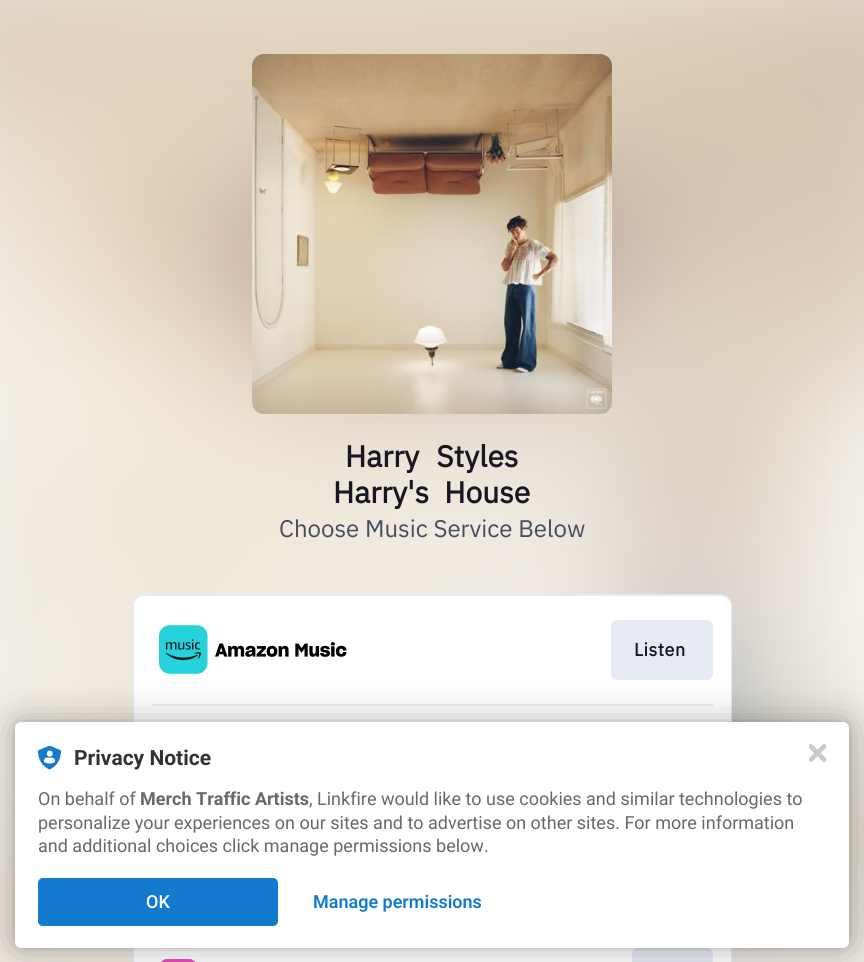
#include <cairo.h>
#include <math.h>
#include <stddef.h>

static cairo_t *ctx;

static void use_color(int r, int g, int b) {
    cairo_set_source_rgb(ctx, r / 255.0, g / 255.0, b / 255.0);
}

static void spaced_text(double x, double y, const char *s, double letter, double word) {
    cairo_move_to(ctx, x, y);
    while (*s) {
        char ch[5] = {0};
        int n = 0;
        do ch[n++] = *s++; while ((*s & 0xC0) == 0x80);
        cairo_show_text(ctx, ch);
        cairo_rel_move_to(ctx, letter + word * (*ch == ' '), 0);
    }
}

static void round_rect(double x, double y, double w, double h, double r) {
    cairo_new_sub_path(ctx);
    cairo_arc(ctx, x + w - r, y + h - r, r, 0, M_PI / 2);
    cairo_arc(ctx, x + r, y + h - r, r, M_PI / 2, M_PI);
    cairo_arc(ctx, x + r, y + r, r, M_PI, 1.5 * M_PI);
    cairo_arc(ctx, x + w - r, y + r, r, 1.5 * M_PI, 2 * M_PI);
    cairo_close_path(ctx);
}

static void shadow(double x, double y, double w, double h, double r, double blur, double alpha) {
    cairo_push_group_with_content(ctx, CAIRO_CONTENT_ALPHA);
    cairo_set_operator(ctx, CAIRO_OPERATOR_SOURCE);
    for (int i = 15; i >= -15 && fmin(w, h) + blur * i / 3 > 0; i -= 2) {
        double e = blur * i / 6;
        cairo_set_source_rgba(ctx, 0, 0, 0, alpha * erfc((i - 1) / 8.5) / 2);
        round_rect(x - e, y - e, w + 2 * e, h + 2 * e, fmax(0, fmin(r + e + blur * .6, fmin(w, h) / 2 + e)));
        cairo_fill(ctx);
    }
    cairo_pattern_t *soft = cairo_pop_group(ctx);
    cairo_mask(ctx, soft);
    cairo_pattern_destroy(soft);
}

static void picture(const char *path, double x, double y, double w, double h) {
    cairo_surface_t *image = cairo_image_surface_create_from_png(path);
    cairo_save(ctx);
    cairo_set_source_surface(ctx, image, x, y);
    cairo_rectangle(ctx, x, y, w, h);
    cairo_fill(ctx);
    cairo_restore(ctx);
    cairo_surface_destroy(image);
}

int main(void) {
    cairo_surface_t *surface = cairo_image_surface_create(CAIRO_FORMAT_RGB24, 864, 962);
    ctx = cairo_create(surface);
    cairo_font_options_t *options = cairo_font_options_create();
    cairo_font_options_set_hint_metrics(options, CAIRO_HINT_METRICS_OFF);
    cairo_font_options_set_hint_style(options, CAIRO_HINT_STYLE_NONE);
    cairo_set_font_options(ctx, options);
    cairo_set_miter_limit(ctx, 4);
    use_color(255, 255, 255);
    cairo_paint(ctx);
    picture("img1.png", 0, 0, 864, 962);
    picture("img2.png", 252, 54, 360, 360);
    cairo_select_font_face(ctx, "IBM Plex Sans", CAIRO_FONT_SLANT_NORMAL, CAIRO_FONT_WEIGHT_BOLD);
    cairo_set_font_size(ctx, 30);
    use_color(24, 23, 33);
    spaced_text(345, 467, "Harry Styles", 0, 10);
    spaced_text(333, 503, "Harry's House", 0, 8);
    cairo_select_font_face(ctx, "IBM Plex Sans", CAIRO_FONT_SLANT_NORMAL, CAIRO_FONT_WEIGHT_NORMAL);
    cairo_set_font_size(ctx, 24);
    use_color(69, 75, 95);
    cairo_move_to(ctx, 279, 537);
    cairo_show_text(ctx, "Choose Music Service Below");
    use_color(255, 255, 255);
    round_rect(133, 595, 598, 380, 11);
    cairo_fill_preserve(ctx);
    use_color(230, 234, 242);
    cairo_stroke(ctx);
    use_color(255, 255, 255);
    round_rect(134, 596, 597, 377, 11);
    cairo_fill(ctx);
    picture("img3.png", 159, 625, 188, 49);
    use_color(230, 234, 242);
    round_rect(611, 620, 102, 60, 6);
    cairo_fill(ctx);
    cairo_select_font_face(ctx, "IBM Plex Sans", CAIRO_FONT_SLANT_NORMAL, CAIRO_FONT_WEIGHT_BOLD);
    cairo_set_font_size(ctx, 18);
    use_color(24, 23, 33);
    spaced_text(634, 656, "Listen", 0.5, 0);
    use_color(230, 234, 242);
    cairo_rectangle(ctx, 152, 704, 561, 2);
    cairo_fill(ctx);
    picture("img4.png", 161, 959, 35, 3);
    round_rect(632, 948, 81, 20, 6);
    cairo_fill(ctx);
    use_color(0, 0, 0);
    shadow(15, 722, 834, 226, 6, 3, 0.12);
    shadow(15, 722, 834, 226, 6, 18, 0.3);
    use_color(255, 255, 255);
    round_rect(15, 722, 834, 226, 6);
    cairo_fill(ctx);
    picture("img5.png", 38, 746, 23, 24);
    cairo_select_font_face(ctx, "Roboto", CAIRO_FONT_SLANT_NORMAL, CAIRO_FONT_WEIGHT_BOLD);
    cairo_set_font_size(ctx, 21);
    use_color(50, 50, 50);
    cairo_move_to(ctx, 74, 765);
    cairo_show_text(ctx, "Privacy Notice");
    cairo_select_font_face(ctx, "Roboto", CAIRO_FONT_SLANT_NORMAL, CAIRO_FONT_WEIGHT_NORMAL);
    cairo_set_font_size(ctx, 18);
    use_color(104, 104, 104);
    cairo_move_to(ctx, 38, 805);
    cairo_show_text(ctx, "On behalf of");
    cairo_select_font_face(ctx, "Roboto", CAIRO_FONT_SLANT_NORMAL, CAIRO_FONT_WEIGHT_BOLD);
    cairo_move_to(ctx, 140, 805);
    cairo_show_text(ctx, "Merch Traffic Artists");
    cairo_select_font_face(ctx, "Roboto", CAIRO_FONT_SLANT_NORMAL, CAIRO_FONT_WEIGHT_NORMAL);
    cairo_move_to(ctx, 309, 805);
    cairo_show_text(ctx, ", Linkfire would like to use cookies and similar technologies to");
    cairo_move_to(ctx, 38, 829);
    cairo_show_text(ctx, "personalize your experiences on our sites and to advertise on other sites. For more information");
    cairo_move_to(ctx, 38, 852);
    cairo_show_text(ctx, "and additional choices click manage permissions below.");
    use_color(19, 123, 207);
    round_rect(38, 878, 240, 48, 5);
    cairo_fill(ctx);
    cairo_select_font_face(ctx, "Roboto Medium", CAIRO_FONT_SLANT_NORMAL, CAIRO_FONT_WEIGHT_NORMAL);
    use_color(255, 255, 255);
    cairo_move_to(ctx, 146, 908);
    cairo_show_text(ctx, "OK");
    cairo_select_font_face(ctx, "Roboto SemiBold", CAIRO_FONT_SLANT_NORMAL, CAIRO_FONT_WEIGHT_NORMAL);
    use_color(19, 123, 207);
    cairo_move_to(ctx, 313, 908);
    cairo_show_text(ctx, "Manage permissions");
    picture("img6.png", 809, 744, 18, 18);
    cairo_surface_write_to_png(surface, "result.png");
    cairo_font_options_destroy(options);
    cairo_destroy(ctx);
    cairo_surface_destroy(surface);
    return 0;
}
